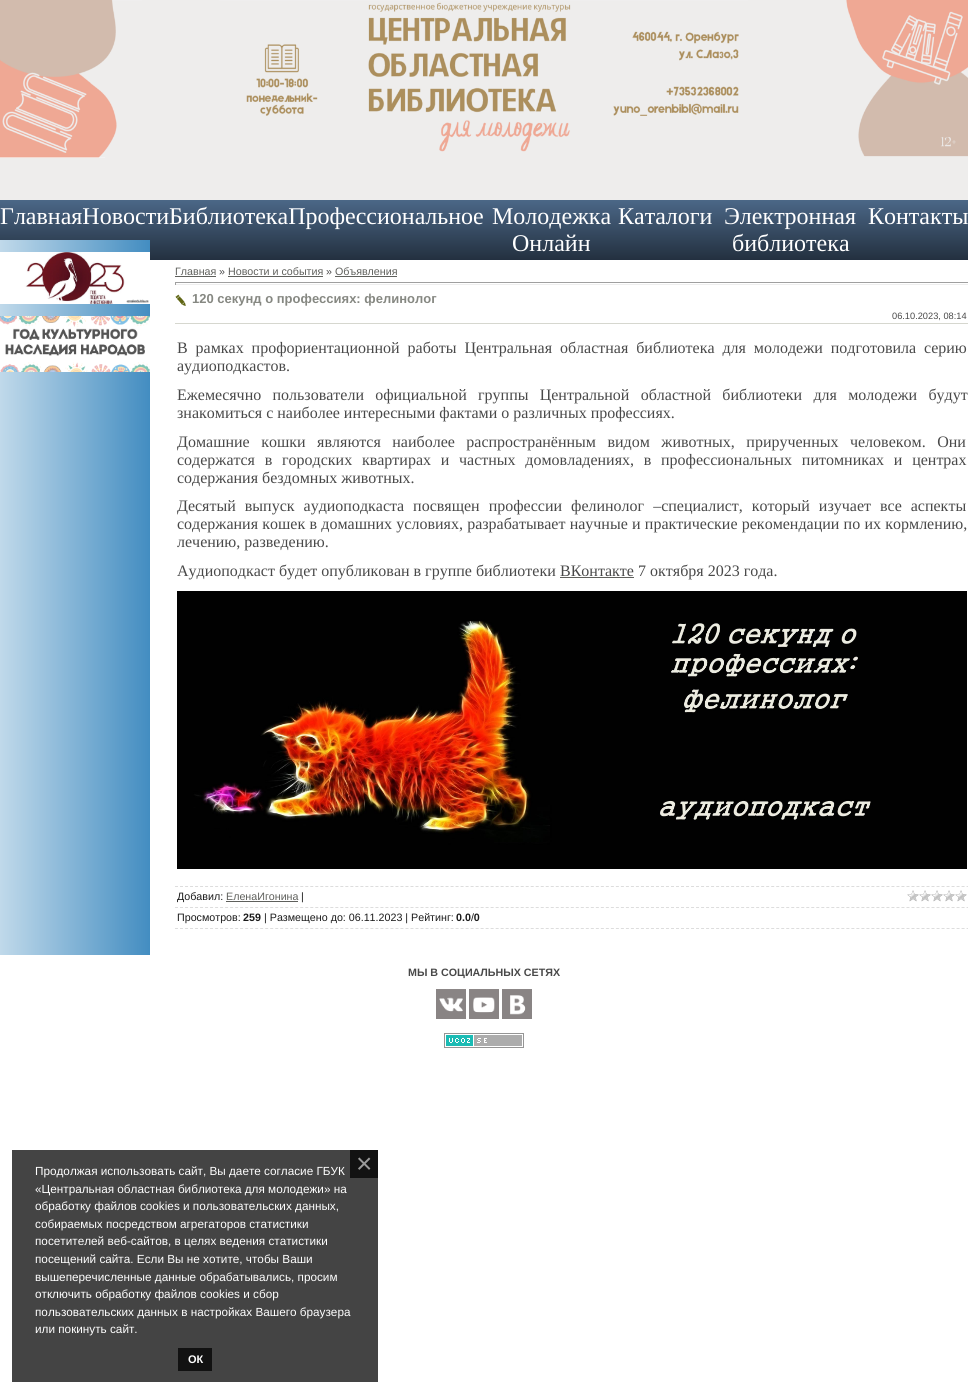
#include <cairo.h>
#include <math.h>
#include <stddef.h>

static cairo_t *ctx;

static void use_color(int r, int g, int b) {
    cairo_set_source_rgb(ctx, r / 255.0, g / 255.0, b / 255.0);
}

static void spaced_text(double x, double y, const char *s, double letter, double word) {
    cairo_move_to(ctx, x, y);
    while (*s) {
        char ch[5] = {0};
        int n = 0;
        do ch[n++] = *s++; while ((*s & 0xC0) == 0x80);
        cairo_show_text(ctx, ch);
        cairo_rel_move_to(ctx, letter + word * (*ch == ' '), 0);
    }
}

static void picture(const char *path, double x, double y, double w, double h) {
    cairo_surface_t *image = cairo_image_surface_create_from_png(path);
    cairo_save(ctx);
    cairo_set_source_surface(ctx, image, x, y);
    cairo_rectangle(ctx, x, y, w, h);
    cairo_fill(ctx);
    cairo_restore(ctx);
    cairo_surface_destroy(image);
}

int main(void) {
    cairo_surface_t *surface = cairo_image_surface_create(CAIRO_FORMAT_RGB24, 968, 1394);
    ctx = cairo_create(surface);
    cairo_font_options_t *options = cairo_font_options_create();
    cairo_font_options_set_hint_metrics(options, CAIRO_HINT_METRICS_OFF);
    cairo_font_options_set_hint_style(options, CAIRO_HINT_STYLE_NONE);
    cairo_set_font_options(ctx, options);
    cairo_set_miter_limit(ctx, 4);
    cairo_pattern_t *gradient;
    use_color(255, 255, 255);
    cairo_paint(ctx);
    picture("img1.png", 0, 0, 968, 200);
    gradient = cairo_pattern_create_linear(484, 260, 484, 200);
    cairo_pattern_add_color_stop_rgba(gradient, 0, 0.137, 0.188, 0.247, 1);
    cairo_pattern_add_color_stop_rgba(gradient, 1, 0.294, 0.404, 0.529, 1);
    cairo_set_source(ctx, gradient);
    cairo_pattern_destroy(gradient);
    cairo_rectangle(ctx, 0, 200, 968, 60);
    cairo_fill(ctx);
    cairo_select_font_face(ctx, "Liberation Serif", CAIRO_FONT_SLANT_NORMAL, CAIRO_FONT_WEIGHT_NORMAL);
    cairo_set_font_size(ctx, 24);
    use_color(255, 255, 255);
    cairo_move_to(ctx, 0, 224);
    cairo_show_text(ctx, "ГлавнаяНовостиБиблиотекаПрофессиональное");
    cairo_move_to(ctx, 492, 224);
    cairo_show_text(ctx, "Молодежка");
    cairo_move_to(ctx, 512, 251);
    cairo_show_text(ctx, "Онлайн");
    cairo_move_to(ctx, 618, 224);
    cairo_show_text(ctx, "Каталоги");
    cairo_move_to(ctx, 724, 224);
    cairo_show_text(ctx, "Электронная");
    cairo_move_to(ctx, 732, 251);
    cairo_show_text(ctx, "библиотека");
    cairo_move_to(ctx, 868, 224);
    cairo_show_text(ctx, "Контакты");
    gradient = cairo_pattern_create_linear(150, 598, 0, 598);
    cairo_pattern_add_color_stop_rgba(gradient, 0, 0.263, 0.553, 0.757, 1);
    cairo_pattern_add_color_stop_rgba(gradient, 1, 0.753, 0.851, 0.918, 1);
    cairo_set_source(ctx, gradient);
    cairo_pattern_destroy(gradient);
    cairo_rectangle(ctx, 0, 240, 150, 715);
    cairo_fill(ctx);
    picture("img2.png", 0, 252, 150, 52);
    picture("img3.png", 0, 316, 150, 56);
    cairo_select_font_face(ctx, "Liberation Sans", CAIRO_FONT_SLANT_NORMAL, CAIRO_FONT_WEIGHT_NORMAL);
    cairo_set_font_size(ctx, 10.7);
    use_color(95, 96, 92);
    cairo_move_to(ctx, 175, 275);
    cairo_show_text(ctx, "Главная");
    cairo_rectangle(ctx, 175, 276, 41, 1);
    cairo_fill(ctx);
    use_color(73, 73, 73);
    cairo_move_to(ctx, 219, 275);
    cairo_show_text(ctx, "»");
    use_color(95, 96, 92);
    cairo_move_to(ctx, 228, 275);
    cairo_show_text(ctx, "Новости и события");
    cairo_rectangle(ctx, 228, 276, 95, 1);
    cairo_fill(ctx);
    use_color(73, 73, 73);
    cairo_move_to(ctx, 326, 275);
    cairo_show_text(ctx, "»");
    use_color(95, 96, 92);
    cairo_move_to(ctx, 335, 275);
    cairo_show_text(ctx, "Объявления");
    cairo_rectangle(ctx, 335, 276, 62, 1);
    cairo_fill(ctx);
    use_color(159, 159, 159);
    cairo_rectangle(ctx, 175, 282, 793, 1);
    cairo_fill(ctx);
    use_color(238, 238, 238);
    cairo_rectangle(ctx, 175, 284, 793, 1);
    cairo_fill(ctx);
    use_color(159, 159, 159);
    cairo_rectangle(ctx, 175, 282, 1, 3);
    cairo_fill(ctx);
    picture("img4.png", 175, 294, 11, 12);
    cairo_select_font_face(ctx, "Liberation Sans", CAIRO_FONT_SLANT_NORMAL, CAIRO_FONT_WEIGHT_BOLD);
    cairo_set_font_size(ctx, 13);
    use_color(134, 136, 130);
    cairo_move_to(ctx, 192, 303);
    cairo_show_text(ctx, "120 секунд о профессиях: фелинолог");
    cairo_select_font_face(ctx, "Liberation Sans", CAIRO_FONT_SLANT_NORMAL, CAIRO_FONT_WEIGHT_NORMAL);
    cairo_set_font_size(ctx, 9.25);
    use_color(73, 73, 73);
    cairo_move_to(ctx, 892, 319);
    cairo_show_text(ctx, "06.10.2023, 08:14");
    use_color(214, 215, 207);
    cairo_rectangle(ctx, 175, 323, 793, 1);
    cairo_fill(ctx);
    cairo_select_font_face(ctx, "Liberation Serif", CAIRO_FONT_SLANT_NORMAL, CAIRO_FONT_WEIGHT_NORMAL);
    cairo_set_font_size(ctx, 16);
    use_color(73, 73, 73);
    spaced_text(177, 353, "В рамках профориентационной работы Центральная областная библиотека для молодежи подготовила серию", 0, 3.9);
    cairo_move_to(ctx, 177, 371);
    cairo_show_text(ctx, "аудиоподкастов.");
    spaced_text(177, 400, "Ежемесячно пользователи официальной группы Центральной областной библиотеки для молодежи будут", 0, 7.25);
    cairo_move_to(ctx, 177, 418);
    cairo_show_text(ctx, "знакомиться с наиболее интересными фактами о различных профессиях.");
    spaced_text(177, 447, "Домашние кошки являются наиболее распространённым видом животных, прирученных человеком. Они", 0, 7.5);
    spaced_text(177, 465, "содержатся в городских квартирах и частных домовладениях, в профессиональных питомниках и центрах", 0, 5.75);
    cairo_move_to(ctx, 177, 483);
    cairo_show_text(ctx, "содержания бездомных животных.");
    spaced_text(177, 511, "Десятый выпуск аудиоподкаста посвящен профессии фелинолог –специалист, который изучает все аспекты", 0, 5);
    spaced_text(177, 529, "содержания кошек в домашних условиях, разрабатывает научные и практические рекомендации по их кормлению,", 0, 0.25);
    cairo_move_to(ctx, 177, 547);
    cairo_show_text(ctx, "лечению, разведению.");
    cairo_move_to(ctx, 177, 576);
    cairo_show_text(ctx, "Аудиоподкаст будет опубликован в группе библиотеки");
    cairo_move_to(ctx, 560, 576);
    cairo_show_text(ctx, "ВКонтакте");
    use_color(95, 96, 92);
    cairo_rectangle(ctx, 560, 577, 74, 1);
    cairo_fill(ctx);
    use_color(73, 73, 73);
    cairo_move_to(ctx, 638, 576);
    cairo_show_text(ctx, "7 октября 2023 года.");
    picture("img5.png", 177, 591, 790, 278);
    cairo_new_path(ctx);
    cairo_move_to(ctx, 175, 886.5);
    cairo_line_to(ctx, 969, 886.5);
    use_color(221, 221, 221);
    cairo_set_line_width(ctx, 1);
    cairo_set_dash(ctx, (double[]){3, 2.01}, 2, 0);
    cairo_stroke(ctx);
    cairo_new_path(ctx);
    cairo_move_to(ctx, 175, 907.5);
    cairo_line_to(ctx, 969, 907.5);
    cairo_stroke(ctx);
    cairo_select_font_face(ctx, "Liberation Sans", CAIRO_FONT_SLANT_NORMAL, CAIRO_FONT_WEIGHT_NORMAL);
    cairo_set_font_size(ctx, 10.7);
    use_color(26, 26, 26);
    cairo_move_to(ctx, 177, 900);
    cairo_show_text(ctx, "Добавил:");
    use_color(95, 96, 92);
    cairo_move_to(ctx, 226, 900);
    cairo_show_text(ctx, "ЕленаИгонина");
    cairo_rectangle(ctx, 226, 901, 72, 1);
    cairo_fill(ctx);
    use_color(26, 26, 26);
    cairo_move_to(ctx, 301, 900);
    cairo_show_text(ctx, "|");
    picture("img6.png", 907, 890, 60, 12);
    cairo_new_path(ctx);
    cairo_move_to(ctx, 175, 928.5);
    cairo_line_to(ctx, 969, 928.5);
    use_color(221, 221, 221);
    cairo_stroke(ctx);
    use_color(26, 26, 26);
    cairo_move_to(ctx, 177, 921);
    cairo_show_text(ctx, "Просмотров:");
    cairo_select_font_face(ctx, "Liberation Sans", CAIRO_FONT_SLANT_NORMAL, CAIRO_FONT_WEIGHT_BOLD);
    cairo_move_to(ctx, 243, 921);
    cairo_show_text(ctx, "259");
    cairo_select_font_face(ctx, "Liberation Sans", CAIRO_FONT_SLANT_NORMAL, CAIRO_FONT_WEIGHT_NORMAL);
    cairo_move_to(ctx, 264, 921);
    cairo_show_text(ctx, "| Размещено до: 06.11.2023 | Рейтинг:");
    cairo_select_font_face(ctx, "Liberation Sans", CAIRO_FONT_SLANT_NORMAL, CAIRO_FONT_WEIGHT_BOLD);
    cairo_move_to(ctx, 456, 921);
    cairo_show_text(ctx, "0.0 0");
    cairo_select_font_face(ctx, "Liberation Sans", CAIRO_FONT_SLANT_NORMAL, CAIRO_FONT_WEIGHT_NORMAL);
    cairo_move_to(ctx, 471, 921);
    cairo_show_text(ctx, "/");
    cairo_select_font_face(ctx, "Liberation Sans", CAIRO_FONT_SLANT_NORMAL, CAIRO_FONT_WEIGHT_BOLD);
    use_color(73, 73, 73);
    cairo_move_to(ctx, 408, 976);
    cairo_show_text(ctx, "МЫ В СОЦИАЛЬНЫХ СЕТЯХ");
    picture("img7.png", 436, 989, 30, 30);
    picture("img8.png", 469, 989, 30, 30);
    picture("img9.png", 502, 989, 30, 30);
    picture("img10.png", 444, 1033, 80, 15);
    use_color(68, 68, 68);
    cairo_rectangle(ctx, 12, 1150, 366, 232);
    cairo_fill(ctx);
    use_color(18, 18, 18);
    cairo_rectangle(ctx, 350, 1150, 28, 28);
    cairo_fill(ctx);
    cairo_select_font_face(ctx, "Liberation Sans", CAIRO_FONT_SLANT_NORMAL, CAIRO_FONT_WEIGHT_NORMAL);
    cairo_set_font_size(ctx, 28);
    use_color(153, 153, 153);
    cairo_move_to(ctx, 356, 1173);
    cairo_show_text(ctx, "×");
    use_color(18, 18, 18);
    cairo_rectangle(ctx, 178, 1348, 34, 23);
    cairo_fill(ctx);
    cairo_select_font_face(ctx, "Liberation Sans", CAIRO_FONT_SLANT_NORMAL, CAIRO_FONT_WEIGHT_BOLD);
    cairo_set_font_size(ctx, 11);
    use_color(255, 255, 255);
    cairo_move_to(ctx, 188, 1363);
    cairo_show_text(ctx, "ОК");
    cairo_select_font_face(ctx, "Liberation Sans", CAIRO_FONT_SLANT_NORMAL, CAIRO_FONT_WEIGHT_NORMAL);
    cairo_set_font_size(ctx, 11.75);
    cairo_move_to(ctx, 35, 1175);
    cairo_show_text(ctx, "Продолжая использовать сайт, Вы даете согласие ГБУК");
    cairo_move_to(ctx, 35, 1193);
    cairo_show_text(ctx, "«Центральная областная библиотека для молодежи» на");
    cairo_move_to(ctx, 35, 1210);
    cairo_show_text(ctx, "обработку файлов cookies и пользовательских данных,");
    cairo_move_to(ctx, 35, 1228);
    cairo_show_text(ctx, "собираемых посредством агрегаторов статистики");
    cairo_move_to(ctx, 35, 1245);
    cairo_show_text(ctx, "посетителей веб-сайтов, в целях ведения статистики");
    cairo_move_to(ctx, 35, 1263);
    cairo_show_text(ctx, "посещений сайта. Если Вы не хотите, чтобы Ваши");
    cairo_move_to(ctx, 35, 1281);
    cairo_show_text(ctx, "вышеперечисленные данные обрабатывались, просим");
    cairo_move_to(ctx, 35, 1298);
    cairo_show_text(ctx, "отключить обработку файлов cookies и сбор");
    cairo_move_to(ctx, 35, 1316);
    cairo_show_text(ctx, "пользовательских данных в настройках Вашего браузера");
    cairo_move_to(ctx, 35, 1333);
    cairo_show_text(ctx, "или покинуть сайт.");
    cairo_surface_write_to_png(surface, "result.png");
    cairo_font_options_destroy(options);
    cairo_destroy(ctx);
    cairo_surface_destroy(surface);
    return 0;
}
